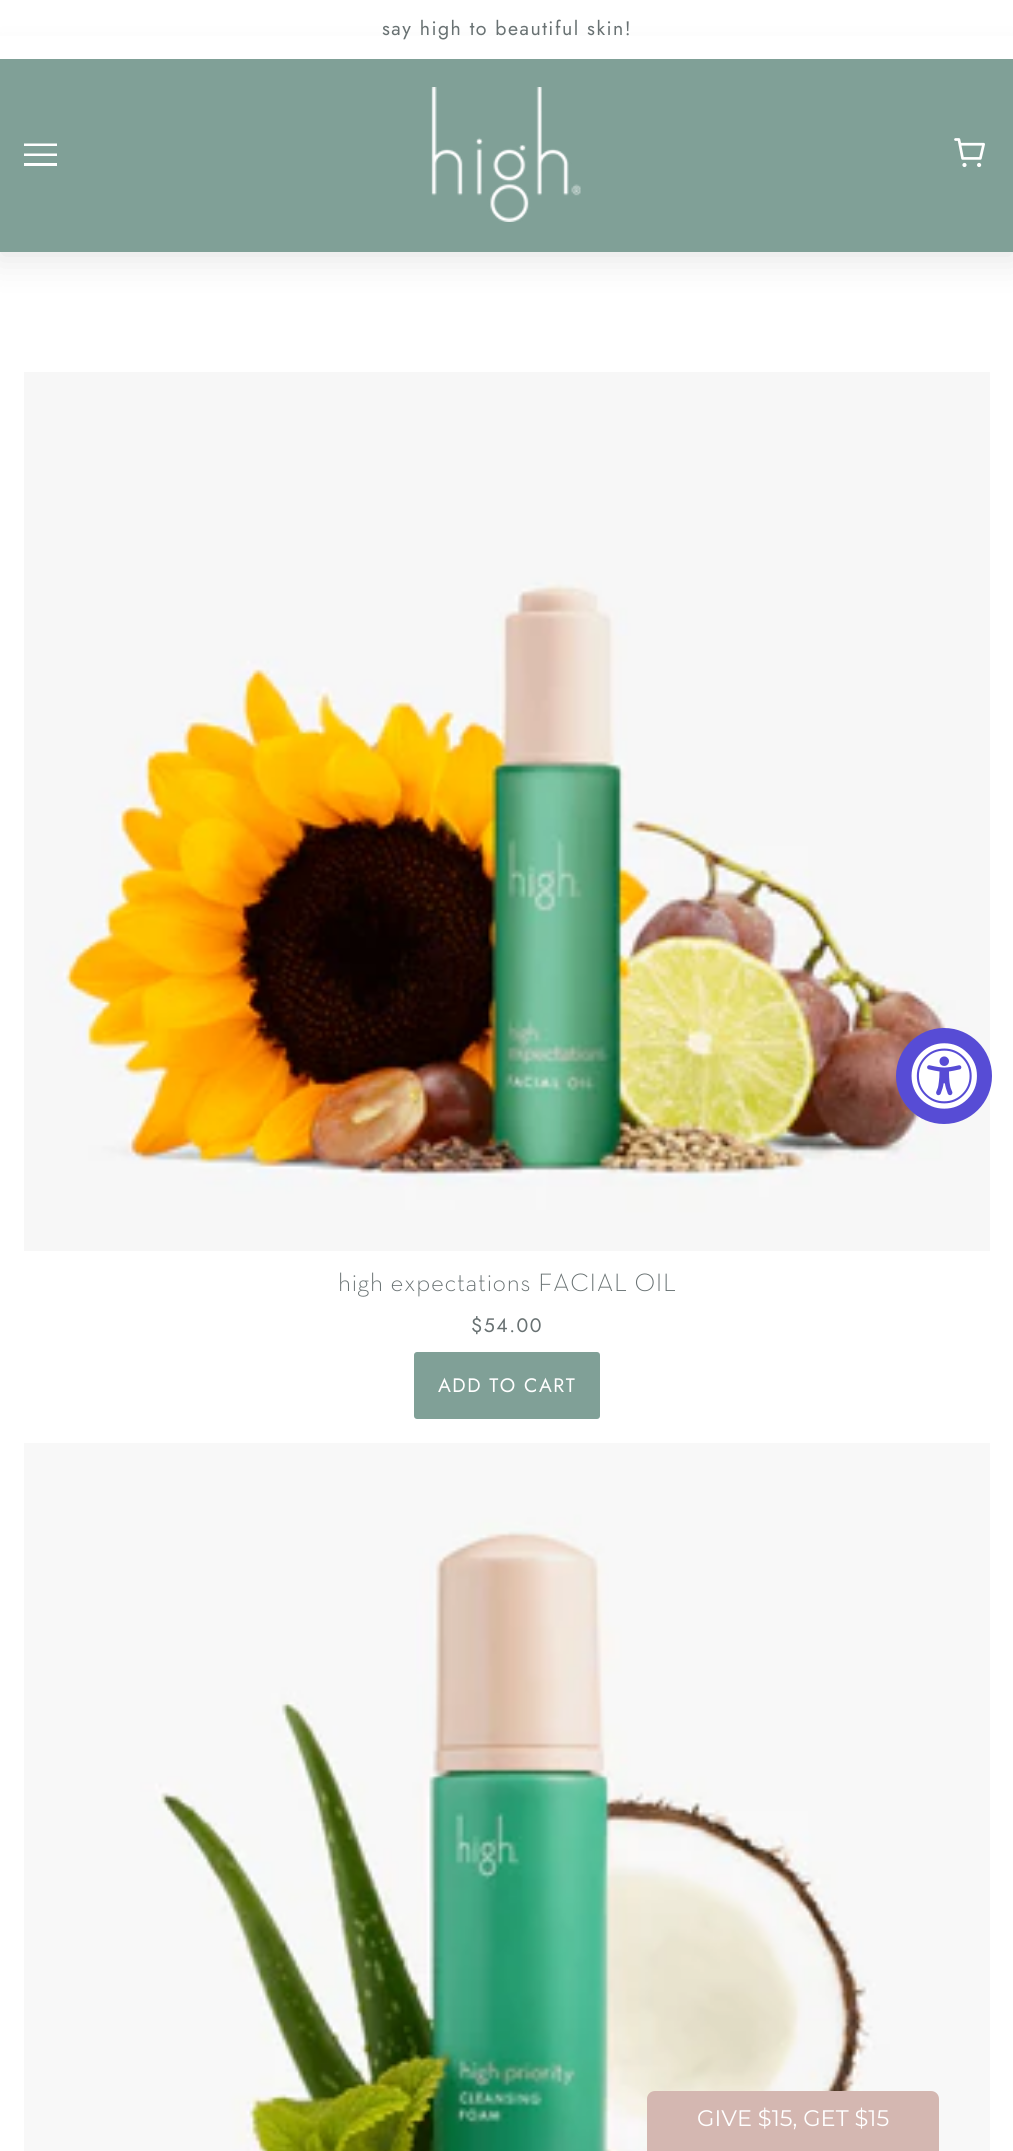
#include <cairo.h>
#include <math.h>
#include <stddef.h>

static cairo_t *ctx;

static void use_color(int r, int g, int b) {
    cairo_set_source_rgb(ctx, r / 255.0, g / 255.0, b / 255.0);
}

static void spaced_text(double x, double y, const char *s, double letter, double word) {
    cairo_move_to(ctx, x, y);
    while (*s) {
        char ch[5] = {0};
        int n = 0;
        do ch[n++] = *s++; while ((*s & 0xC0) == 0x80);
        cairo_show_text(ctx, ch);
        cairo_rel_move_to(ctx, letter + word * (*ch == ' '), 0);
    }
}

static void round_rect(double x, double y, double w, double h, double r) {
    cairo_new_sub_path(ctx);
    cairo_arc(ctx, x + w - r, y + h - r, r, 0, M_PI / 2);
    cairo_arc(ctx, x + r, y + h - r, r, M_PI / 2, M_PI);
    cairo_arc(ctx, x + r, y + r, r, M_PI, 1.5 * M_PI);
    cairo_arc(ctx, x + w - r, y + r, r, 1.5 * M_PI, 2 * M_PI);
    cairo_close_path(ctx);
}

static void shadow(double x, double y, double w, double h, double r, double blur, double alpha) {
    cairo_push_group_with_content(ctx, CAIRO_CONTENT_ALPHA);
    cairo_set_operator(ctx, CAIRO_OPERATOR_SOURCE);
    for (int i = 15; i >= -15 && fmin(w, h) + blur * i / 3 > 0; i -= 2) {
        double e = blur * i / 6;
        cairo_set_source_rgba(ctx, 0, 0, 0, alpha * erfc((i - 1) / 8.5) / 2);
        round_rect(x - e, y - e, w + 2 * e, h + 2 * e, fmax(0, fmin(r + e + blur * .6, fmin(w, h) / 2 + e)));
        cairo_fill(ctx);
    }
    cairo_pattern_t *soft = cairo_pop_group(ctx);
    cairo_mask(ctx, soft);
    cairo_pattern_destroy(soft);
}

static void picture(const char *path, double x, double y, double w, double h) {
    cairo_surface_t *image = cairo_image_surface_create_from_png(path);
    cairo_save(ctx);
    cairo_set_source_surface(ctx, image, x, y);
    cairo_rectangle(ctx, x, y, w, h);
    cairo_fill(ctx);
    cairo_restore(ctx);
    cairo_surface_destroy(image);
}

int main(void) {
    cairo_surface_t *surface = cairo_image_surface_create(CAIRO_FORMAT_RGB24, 1013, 2151);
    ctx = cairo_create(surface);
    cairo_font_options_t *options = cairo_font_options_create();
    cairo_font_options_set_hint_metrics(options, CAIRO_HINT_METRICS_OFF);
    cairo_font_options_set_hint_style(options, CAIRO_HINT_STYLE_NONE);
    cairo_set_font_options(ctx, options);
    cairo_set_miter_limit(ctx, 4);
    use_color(255, 255, 255);
    cairo_paint(ctx);
    use_color(0, 0, 0);
    shadow(-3, 59, 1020, 201, 0, 18, 0.1);
    use_color(128, 160, 151);
    cairo_rectangle(ctx, 0, 59, 1013, 193);
    cairo_fill(ctx);
    use_color(255, 255, 255);
    cairo_new_path(ctx);
    cairo_move_to(ctx, 24, 146);
    cairo_line_to(ctx, 24, 143.5);
    cairo_line_to(ctx, 57, 143.5);
    cairo_line_to(ctx, 57, 146);
    cairo_close_path(ctx);
    cairo_move_to(ctx, 24, 156);
    cairo_line_to(ctx, 24, 153.5);
    cairo_line_to(ctx, 57, 153.5);
    cairo_line_to(ctx, 57, 156);
    cairo_close_path(ctx);
    cairo_move_to(ctx, 24, 166);
    cairo_line_to(ctx, 24, 163);
    cairo_line_to(ctx, 57, 163);
    cairo_line_to(ctx, 57, 166);
    cairo_close_path(ctx);
    cairo_fill(ctx);
    picture("img1.png", 431, 87, 150, 135);
    picture("img2.png", 954, 138, 31, 30);
    cairo_rectangle(ctx, 0, 36, 1013, 23);
    cairo_fill(ctx);
    cairo_select_font_face(ctx, "Jost", CAIRO_FONT_SLANT_NORMAL, CAIRO_FONT_WEIGHT_NORMAL);
    cairo_set_font_size(ctx, 19.5);
    use_color(104, 113, 114);
    spaced_text(382, 35, "say high to beautiful skin!", 1.5, 0);
    picture("img3.png", 24, 372, 966, 879);
    cairo_select_font_face(ctx, "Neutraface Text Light", CAIRO_FONT_SLANT_NORMAL, CAIRO_FONT_WEIGHT_NORMAL);
    cairo_set_font_size(ctx, 25.5);
    spaced_text(338, 1291, "high expectations FACIAL OIL", 0.65, 0);
    cairo_select_font_face(ctx, "Jost", CAIRO_FONT_SLANT_NORMAL, CAIRO_FONT_WEIGHT_NORMAL);
    cairo_set_font_size(ctx, 19.5);
    spaced_text(471, 1332, "$54.00", 1.5, 0);
    use_color(128, 160, 151);
    round_rect(414, 1352, 186, 67, 3);
    cairo_fill(ctx);
    use_color(255, 255, 255);
    spaced_text(438, 1392, "ADD TO CART", 1.5, 0);
    picture("img4.png", 24, 1443, 966, 708);
    use_color(87, 76, 213);
    cairo_arc(ctx, 944, 1076, 48, 0, 2 * M_PI);
    cairo_fill(ctx);
    picture("img5.png", 911, 1043, 66, 66);
    use_color(212, 183, 177);
    cairo_new_path(ctx);
    cairo_move_to(ctx, 655, 2091);
    cairo_line_to(ctx, 931, 2091);
    cairo_curve_to(ctx, 935.5, 2091, 939, 2094.5, 939, 2099);
    cairo_line_to(ctx, 939, 2151);
    cairo_line_to(ctx, 647, 2151);
    cairo_line_to(ctx, 647, 2099);
    cairo_curve_to(ctx, 647, 2094.5, 650.5, 2091, 655, 2091);
    cairo_close_path(ctx);
    cairo_fill(ctx);
    cairo_select_font_face(ctx, "Montserrat", CAIRO_FONT_SLANT_NORMAL, CAIRO_FONT_WEIGHT_NORMAL);
    cairo_set_font_size(ctx, 22.5);
    use_color(255, 255, 255);
    cairo_move_to(ctx, 697, 2126);
    cairo_show_text(ctx, "GIVE $15, GET $15");
    cairo_surface_write_to_png(surface, "result.png");
    cairo_font_options_destroy(options);
    cairo_destroy(ctx);
    cairo_surface_destroy(surface);
    return 0;
}
